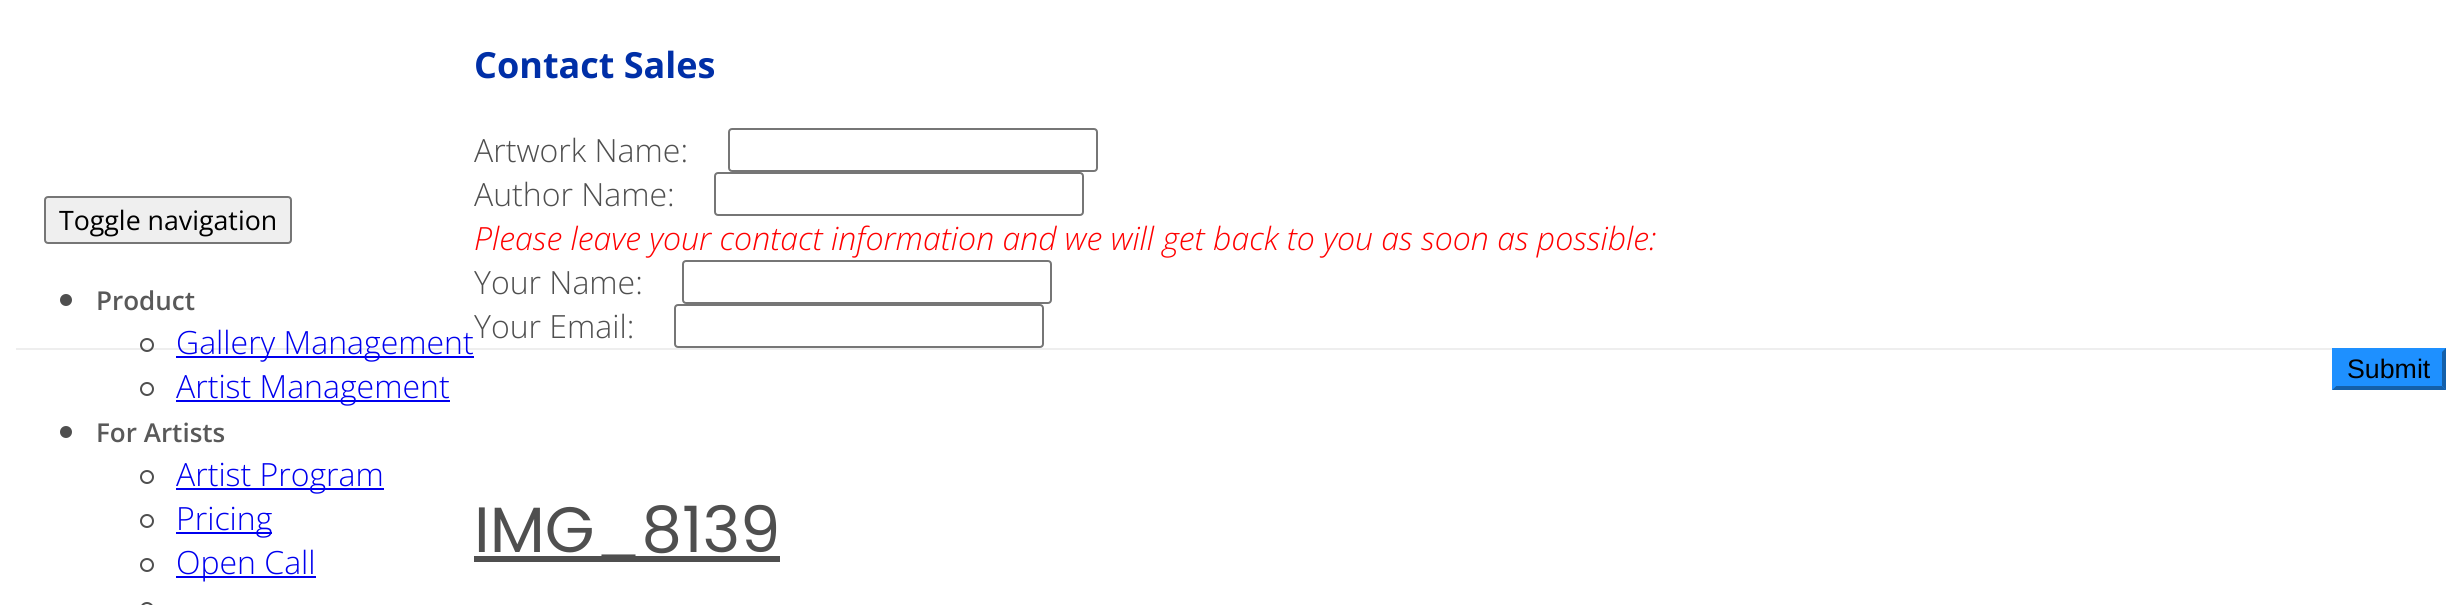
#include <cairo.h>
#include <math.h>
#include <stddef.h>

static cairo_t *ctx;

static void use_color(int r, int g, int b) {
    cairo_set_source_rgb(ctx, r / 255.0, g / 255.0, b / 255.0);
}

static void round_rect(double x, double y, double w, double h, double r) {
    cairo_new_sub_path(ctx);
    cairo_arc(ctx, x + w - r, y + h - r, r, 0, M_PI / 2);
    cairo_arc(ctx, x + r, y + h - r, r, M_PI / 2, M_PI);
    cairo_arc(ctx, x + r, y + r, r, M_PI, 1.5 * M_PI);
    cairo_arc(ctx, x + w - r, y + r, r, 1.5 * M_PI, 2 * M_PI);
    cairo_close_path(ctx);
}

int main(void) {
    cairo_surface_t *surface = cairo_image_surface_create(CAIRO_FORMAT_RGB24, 2461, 605);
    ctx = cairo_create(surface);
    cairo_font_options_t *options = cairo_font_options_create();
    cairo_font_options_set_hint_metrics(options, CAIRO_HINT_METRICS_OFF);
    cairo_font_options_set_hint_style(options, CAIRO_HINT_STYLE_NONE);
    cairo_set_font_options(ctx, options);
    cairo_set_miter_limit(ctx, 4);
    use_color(255, 255, 255);
    cairo_paint(ctx);
    use_color(239, 239, 239);
    round_rect(45, 197, 246, 46, 3);
    cairo_fill_preserve(ctx);
    use_color(118, 118, 118);
    cairo_stroke(ctx);
    cairo_select_font_face(ctx, "Open Sans", CAIRO_FONT_SLANT_NORMAL, CAIRO_FONT_WEIGHT_NORMAL);
    cairo_set_font_size(ctx, 26.75);
    use_color(0, 0, 0);
    cairo_move_to(ctx, 59, 230);
    cairo_show_text(ctx, "Toggle navigation");
    use_color(79, 79, 79);
    cairo_new_path(ctx);
    cairo_arc(ctx, 66, 300, 6, 0, 2 * M_PI);
    cairo_fill(ctx);
    cairo_select_font_face(ctx, "Open Sans SemiBold", CAIRO_FONT_SLANT_NORMAL, CAIRO_FONT_WEIGHT_NORMAL);
    cairo_set_font_size(ctx, 26);
    use_color(89, 89, 89);
    cairo_move_to(ctx, 96, 310);
    cairo_show_text(ctx, "Product");
    use_color(238, 238, 238);
    cairo_rectangle(ctx, 16, 348, 2316, 2);
    cairo_fill(ctx);
    cairo_arc(ctx, 147, 345, 6, 0, 2 * M_PI);
    use_color(79, 79, 79);
    cairo_stroke(ctx);
    use_color(0, 0, 238);
    cairo_rectangle(ctx, 176, 356, 298, 2);
    cairo_fill(ctx);
    cairo_select_font_face(ctx, "Open Sans Light", CAIRO_FONT_SLANT_NORMAL, CAIRO_FONT_WEIGHT_NORMAL);
    cairo_set_font_size(ctx, 32);
    cairo_move_to(ctx, 176, 354);
    cairo_show_text(ctx, "Gallery Management");
    cairo_new_path(ctx);
    cairo_arc(ctx, 147, 389, 6, 0, 2 * M_PI);
    use_color(79, 79, 79);
    cairo_stroke(ctx);
    use_color(0, 0, 238);
    cairo_rectangle(ctx, 176, 400, 274, 2);
    cairo_fill(ctx);
    cairo_move_to(ctx, 176, 398);
    cairo_show_text(ctx, "Artist Management");
    use_color(79, 79, 79);
    cairo_new_path(ctx);
    cairo_arc(ctx, 66, 432, 6, 0, 2 * M_PI);
    cairo_fill(ctx);
    cairo_select_font_face(ctx, "Open Sans SemiBold", CAIRO_FONT_SLANT_NORMAL, CAIRO_FONT_WEIGHT_NORMAL);
    cairo_set_font_size(ctx, 26);
    use_color(89, 89, 89);
    cairo_move_to(ctx, 96, 442);
    cairo_show_text(ctx, "For Artists");
    cairo_new_path(ctx);
    cairo_arc(ctx, 147, 477, 6, 0, 2 * M_PI);
    use_color(79, 79, 79);
    cairo_stroke(ctx);
    use_color(0, 0, 238);
    cairo_rectangle(ctx, 176, 488, 208, 2);
    cairo_fill(ctx);
    cairo_select_font_face(ctx, "Open Sans Light", CAIRO_FONT_SLANT_NORMAL, CAIRO_FONT_WEIGHT_NORMAL);
    cairo_set_font_size(ctx, 32);
    cairo_move_to(ctx, 176, 486);
    cairo_show_text(ctx, "Artist Program");
    cairo_new_path(ctx);
    cairo_arc(ctx, 147, 521, 6, 0, 2 * M_PI);
    use_color(79, 79, 79);
    cairo_stroke(ctx);
    use_color(0, 0, 238);
    cairo_rectangle(ctx, 176, 532, 96, 2);
    cairo_fill(ctx);
    cairo_move_to(ctx, 176, 530);
    cairo_show_text(ctx, "Pricing");
    cairo_new_path(ctx);
    cairo_arc(ctx, 147, 565, 6, 0, 2 * M_PI);
    use_color(79, 79, 79);
    cairo_stroke(ctx);
    use_color(0, 0, 238);
    cairo_rectangle(ctx, 176, 576, 140, 2);
    cairo_fill(ctx);
    cairo_move_to(ctx, 176, 574);
    cairo_show_text(ctx, "Open Call");
    round_rect(141, 603, 12, 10, 6);
    use_color(79, 79, 79);
    cairo_stroke(ctx);
    cairo_select_font_face(ctx, "Open Sans", CAIRO_FONT_SLANT_NORMAL, CAIRO_FONT_WEIGHT_BOLD);
    cairo_set_font_size(ctx, 36);
    use_color(0, 47, 167);
    cairo_move_to(ctx, 474, 78);
    cairo_show_text(ctx, "Contact Sales");
    cairo_select_font_face(ctx, "Open Sans Light", CAIRO_FONT_SLANT_NORMAL, CAIRO_FONT_WEIGHT_NORMAL);
    cairo_set_font_size(ctx, 32);
    use_color(79, 79, 79);
    cairo_move_to(ctx, 474, 162);
    cairo_show_text(ctx, "Artwork Name:");
    round_rect(729, 129, 368, 42, 3);
    use_color(118, 118, 118);
    cairo_stroke(ctx);
    use_color(79, 79, 79);
    cairo_move_to(ctx, 474, 206);
    cairo_show_text(ctx, "Author Name:");
    round_rect(715, 173, 368, 42, 3);
    use_color(118, 118, 118);
    cairo_stroke(ctx);
    cairo_select_font_face(ctx, "Open Sans Light", CAIRO_FONT_SLANT_ITALIC, CAIRO_FONT_WEIGHT_NORMAL);
    use_color(255, 0, 0);
    cairo_move_to(ctx, 474, 250);
    cairo_show_text(ctx, "Please leave your contact information and we will get back to you as soon as possible:");
    cairo_select_font_face(ctx, "Open Sans Light", CAIRO_FONT_SLANT_NORMAL, CAIRO_FONT_WEIGHT_NORMAL);
    use_color(79, 79, 79);
    cairo_move_to(ctx, 474, 294);
    cairo_show_text(ctx, "Your Name:");
    round_rect(683, 261, 368, 42, 3);
    use_color(118, 118, 118);
    cairo_stroke(ctx);
    use_color(79, 79, 79);
    cairo_move_to(ctx, 474, 338);
    cairo_show_text(ctx, "Your Email:");
    round_rect(675, 305, 368, 42, 3);
    use_color(118, 118, 118);
    cairo_stroke(ctx);
    use_color(30, 144, 255);
    cairo_rectangle(ctx, 2332, 348, 114, 42);
    cairo_fill(ctx);
    use_color(20, 96, 170);
    cairo_new_path(ctx);
    cairo_move_to(ctx, 2446, 348);
    cairo_line_to(ctx, 2446, 390);
    cairo_line_to(ctx, 2442, 386);
    cairo_line_to(ctx, 2442, 352);
    cairo_close_path(ctx);
    cairo_fill(ctx);
    cairo_new_path(ctx);
    cairo_move_to(ctx, 2446, 390);
    cairo_line_to(ctx, 2332, 390);
    cairo_line_to(ctx, 2336, 386);
    cairo_line_to(ctx, 2442, 386);
    cairo_close_path(ctx);
    cairo_fill(ctx);
    use_color(30, 144, 255);
    cairo_new_path(ctx);
    cairo_move_to(ctx, 2332, 390);
    cairo_line_to(ctx, 2332, 348);
    cairo_line_to(ctx, 2336, 352);
    cairo_line_to(ctx, 2336, 386);
    cairo_close_path(ctx);
    cairo_fill(ctx);
    cairo_select_font_face(ctx, "Liberation Sans", CAIRO_FONT_SLANT_NORMAL, CAIRO_FONT_WEIGHT_NORMAL);
    cairo_set_font_size(ctx, 26.75);
    use_color(0, 0, 0);
    cairo_move_to(ctx, 2347, 378);
    cairo_show_text(ctx, "Submit");
    use_color(79, 79, 79);
    cairo_rectangle(ctx, 474, 556, 306, 6);
    cairo_fill(ctx);
    cairo_select_font_face(ctx, "Poppins", CAIRO_FONT_SLANT_NORMAL, CAIRO_FONT_WEIGHT_NORMAL);
    cairo_set_font_size(ctx, 64);
    cairo_move_to(ctx, 474, 552);
    cairo_show_text(ctx, "IMG_8139");
    cairo_surface_write_to_png(surface, "result.png");
    cairo_font_options_destroy(options);
    cairo_destroy(ctx);
    cairo_surface_destroy(surface);
    return 0;
}
